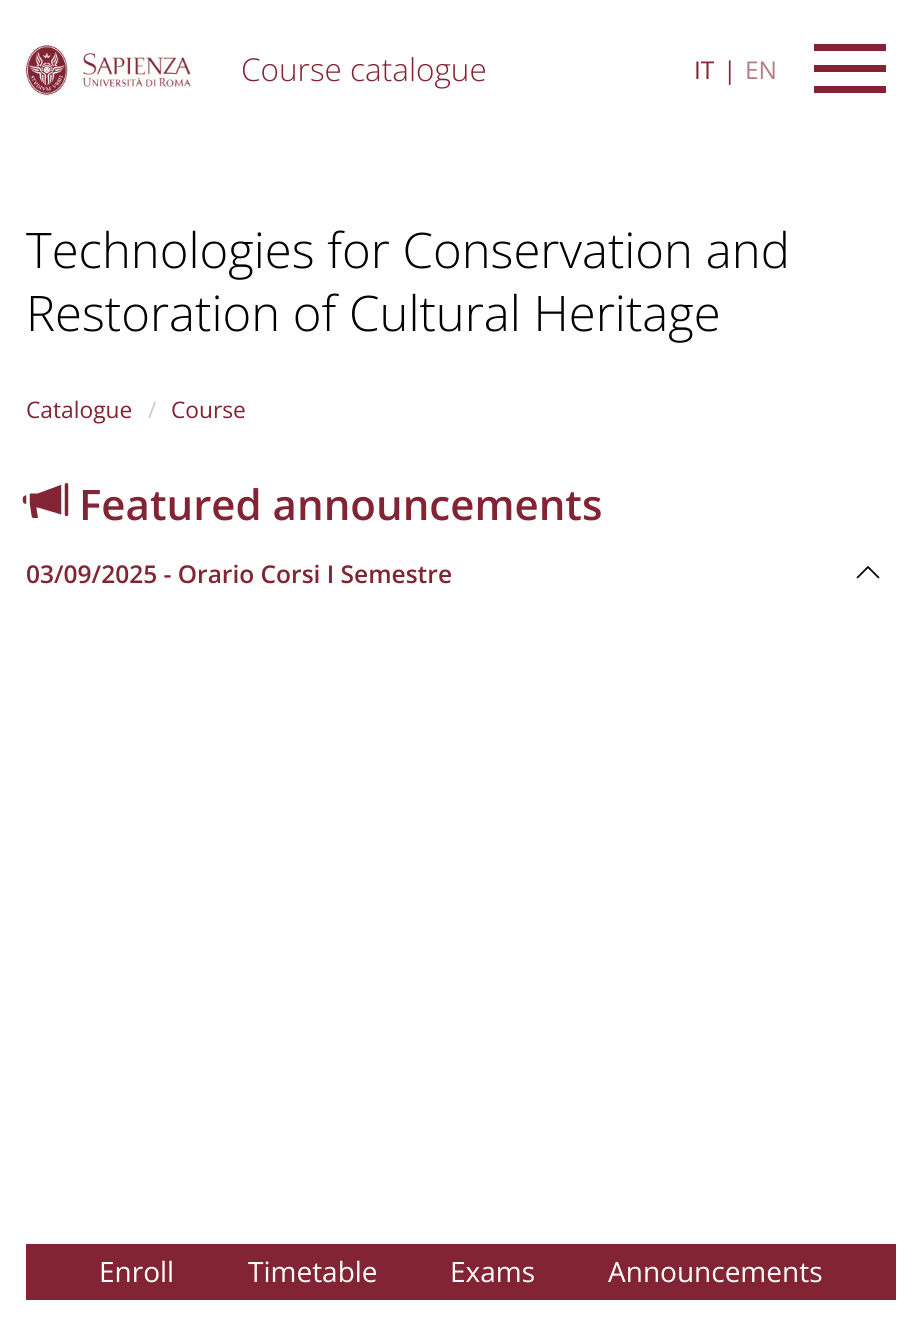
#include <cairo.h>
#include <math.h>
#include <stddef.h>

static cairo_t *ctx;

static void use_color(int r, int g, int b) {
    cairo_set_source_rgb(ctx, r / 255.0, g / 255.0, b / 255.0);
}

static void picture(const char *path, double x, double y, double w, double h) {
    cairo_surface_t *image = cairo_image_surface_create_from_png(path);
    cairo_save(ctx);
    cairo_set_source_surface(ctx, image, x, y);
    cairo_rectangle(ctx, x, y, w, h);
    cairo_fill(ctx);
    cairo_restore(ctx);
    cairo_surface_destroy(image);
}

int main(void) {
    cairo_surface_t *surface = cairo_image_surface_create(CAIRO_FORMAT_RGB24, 922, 1323);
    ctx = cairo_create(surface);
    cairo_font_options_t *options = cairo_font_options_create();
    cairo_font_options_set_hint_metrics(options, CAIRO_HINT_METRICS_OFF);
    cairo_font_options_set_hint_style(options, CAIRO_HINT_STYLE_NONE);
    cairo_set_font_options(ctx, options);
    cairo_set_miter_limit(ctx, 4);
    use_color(255, 255, 255);
    cairo_paint(ctx);
    picture("img1.png", 26, 45, 165, 50);
    cairo_select_font_face(ctx, "Open Sans Light", CAIRO_FONT_SLANT_NORMAL, CAIRO_FONT_WEIGHT_NORMAL);
    cairo_set_font_size(ctx, 31.5);
    use_color(130, 36, 51);
    cairo_move_to(ctx, 241, 81);
    cairo_show_text(ctx, "Course catalogue");
    cairo_select_font_face(ctx, "Open Sans", CAIRO_FONT_SLANT_NORMAL, CAIRO_FONT_WEIGHT_NORMAL);
    cairo_set_font_size(ctx, 24.5);
    cairo_move_to(ctx, 694, 79);
    cairo_show_text(ctx, "IT");
    cairo_move_to(ctx, 723, 79);
    cairo_show_text(ctx, "|");
    use_color(180, 124, 133);
    cairo_move_to(ctx, 745, 79);
    cairo_show_text(ctx, "EN");
    use_color(130, 36, 51);
    cairo_new_path(ctx);
    cairo_move_to(ctx, 814, 44);
    cairo_line_to(ctx, 814, 51);
    cairo_line_to(ctx, 886, 51);
    cairo_line_to(ctx, 886, 44);
    cairo_close_path(ctx);
    cairo_move_to(ctx, 814, 65);
    cairo_line_to(ctx, 814, 72);
    cairo_line_to(ctx, 886, 72);
    cairo_line_to(ctx, 886, 65);
    cairo_close_path(ctx);
    cairo_move_to(ctx, 814, 86);
    cairo_line_to(ctx, 814, 93);
    cairo_line_to(ctx, 886, 93);
    cairo_line_to(ctx, 886, 86);
    cairo_close_path(ctx);
    cairo_fill(ctx);
    cairo_select_font_face(ctx, "Open Sans Light", CAIRO_FONT_SLANT_NORMAL, CAIRO_FONT_WEIGHT_NORMAL);
    cairo_set_font_size(ctx, 49);
    use_color(0, 0, 0);
    cairo_move_to(ctx, 26, 268);
    cairo_show_text(ctx, "Technologies for Conservation and");
    cairo_move_to(ctx, 26, 331);
    cairo_show_text(ctx, "Restoration of Cultural Heritage");
    cairo_select_font_face(ctx, "Open Sans", CAIRO_FONT_SLANT_NORMAL, CAIRO_FONT_WEIGHT_NORMAL);
    cairo_set_font_size(ctx, 22.75);
    use_color(130, 36, 51);
    cairo_move_to(ctx, 26, 418);
    cairo_show_text(ctx, "Catalogue");
    use_color(204, 204, 204);
    cairo_move_to(ctx, 148, 418);
    cairo_show_text(ctx, "/");
    use_color(130, 36, 51);
    cairo_move_to(ctx, 171, 418);
    cairo_show_text(ctx, "Course");
    picture("img2.png", 22, 483, 47, 35);
    cairo_select_font_face(ctx, "Open Sans SemiBold", CAIRO_FONT_SLANT_NORMAL, CAIRO_FONT_WEIGHT_NORMAL);
    cairo_set_font_size(ctx, 42);
    cairo_move_to(ctx, 79, 520);
    cairo_show_text(ctx, "Featured announcements");
    cairo_set_font_size(ctx, 24.5);
    cairo_move_to(ctx, 26, 583);
    cairo_show_text(ctx, "03/09/2025 - Orario Corsi I Semestre");
    picture("img3.png", 856, 566, 24, 13);
    cairo_rectangle(ctx, 26, 1244, 870, 56);
    cairo_fill(ctx);
    cairo_select_font_face(ctx, "Open Sans", CAIRO_FONT_SLANT_NORMAL, CAIRO_FONT_WEIGHT_NORMAL);
    cairo_set_font_size(ctx, 28);
    use_color(255, 255, 255);
    cairo_move_to(ctx, 99, 1282);
    cairo_show_text(ctx, "Enroll");
    cairo_move_to(ctx, 248, 1282);
    cairo_show_text(ctx, "Timetable");
    cairo_move_to(ctx, 450, 1282);
    cairo_show_text(ctx, "Exams");
    cairo_move_to(ctx, 608, 1282);
    cairo_show_text(ctx, "Announcements");
    cairo_surface_write_to_png(surface, "result.png");
    cairo_font_options_destroy(options);
    cairo_destroy(ctx);
    cairo_surface_destroy(surface);
    return 0;
}
